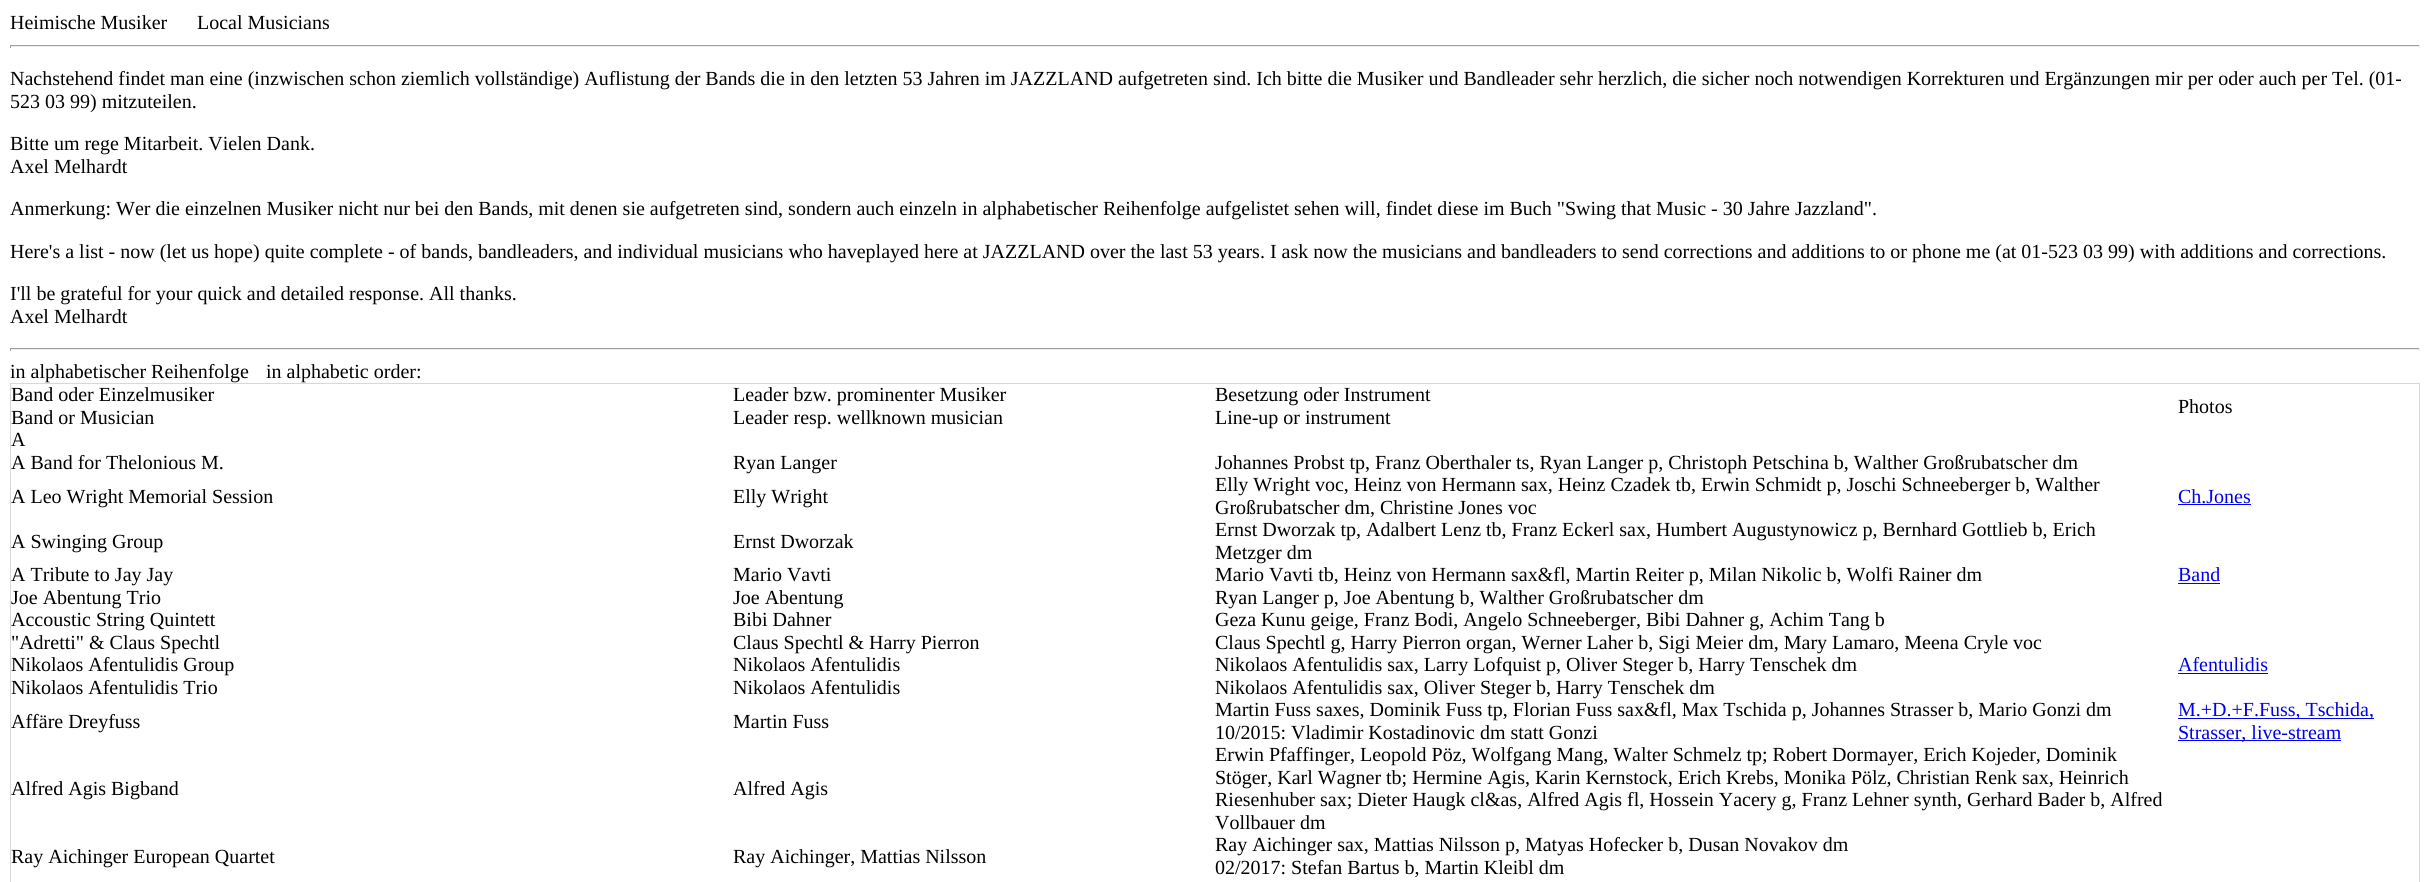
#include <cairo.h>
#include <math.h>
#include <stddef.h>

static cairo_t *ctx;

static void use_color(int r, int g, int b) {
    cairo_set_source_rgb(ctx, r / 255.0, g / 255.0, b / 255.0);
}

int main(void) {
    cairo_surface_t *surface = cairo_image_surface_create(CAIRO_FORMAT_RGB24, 2430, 882);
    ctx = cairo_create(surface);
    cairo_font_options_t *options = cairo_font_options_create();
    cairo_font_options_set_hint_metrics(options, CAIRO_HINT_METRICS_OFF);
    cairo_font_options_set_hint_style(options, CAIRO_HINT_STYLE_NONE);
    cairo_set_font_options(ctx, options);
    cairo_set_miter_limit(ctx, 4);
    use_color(255, 255, 255);
    cairo_paint(ctx);
    cairo_select_font_face(ctx, "Liberation Serif", CAIRO_FONT_SLANT_NORMAL, CAIRO_FONT_WEIGHT_NORMAL);
    cairo_set_font_size(ctx, 20);
    use_color(0, 0, 0);
    cairo_move_to(ctx, 10, 29);
    cairo_show_text(ctx, "Heimische Musiker");
    cairo_move_to(ctx, 197, 29);
    cairo_show_text(ctx, "Local Musicians");
    use_color(159, 159, 159);
    cairo_rectangle(ctx, 10, 45, 2410, 1);
    cairo_fill(ctx);
    use_color(238, 238, 238);
    cairo_rectangle(ctx, 2419, 45, 1, 3);
    cairo_fill(ctx);
    cairo_rectangle(ctx, 10, 46, 2410, 1);
    cairo_fill(ctx);
    use_color(159, 159, 159);
    cairo_rectangle(ctx, 10, 45, 1, 3);
    cairo_fill(ctx);
    use_color(0, 0, 0);
    cairo_move_to(ctx, 10, 85);
    cairo_show_text(ctx, "Nachstehend findet man eine (inzwischen schon ziemlich vollständige) Auflistung der Bands die in den letzten 53 Jahren im JAZZLAND aufgetreten sind. Ich bitte die Musiker und Bandleader sehr herzlich, die sicher noch notwendigen Korrekturen und Ergänzungen mir per oder auch per Tel. (01-");
    cairo_move_to(ctx, 10, 108);
    cairo_show_text(ctx, "523 03 99) mitzuteilen.");
    cairo_move_to(ctx, 10, 150);
    cairo_show_text(ctx, "Bitte um rege Mitarbeit. Vielen Dank.");
    cairo_move_to(ctx, 10, 173);
    cairo_show_text(ctx, "Axel Melhardt");
    cairo_move_to(ctx, 10, 215);
    cairo_show_text(ctx, "Anmerkung: Wer die einzelnen Musiker nicht nur bei den Bands, mit denen sie aufgetreten sind, sondern auch einzeln in alphabetischer Reihenfolge aufgelistet sehen will, findet diese im Buch \"Swing that Music - 30 Jahre Jazzland\".");
    cairo_move_to(ctx, 10, 258);
    cairo_show_text(ctx, "Here's a list - now (let us hope) quite complete - of bands, bandleaders, and individual musicians who haveplayed here at JAZZLAND over the last 53 years. I ask now the musicians and bandleaders to send corrections and additions to or phone me (at 01-523 03 99) with additions and corrections.");
    cairo_move_to(ctx, 10, 300);
    cairo_show_text(ctx, "I'll be grateful for your quick and detailed response. All thanks.");
    cairo_move_to(ctx, 10, 323);
    cairo_show_text(ctx, "Axel Melhardt");
    use_color(159, 159, 159);
    cairo_rectangle(ctx, 10, 348, 2410, 1);
    cairo_fill(ctx);
    use_color(238, 238, 238);
    cairo_rectangle(ctx, 2419, 348, 1, 3);
    cairo_fill(ctx);
    cairo_rectangle(ctx, 10, 349, 2410, 1);
    cairo_fill(ctx);
    use_color(159, 159, 159);
    cairo_rectangle(ctx, 10, 348, 1, 3);
    cairo_fill(ctx);
    use_color(0, 0, 0);
    cairo_move_to(ctx, 10, 378);
    cairo_show_text(ctx, "in alphabetischer Reihenfolge");
    cairo_move_to(ctx, 266, 378);
    cairo_show_text(ctx, "in alphabetic order:");
    cairo_rectangle(ctx, 10.5, 383.5, 2409, 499);
    use_color(216, 216, 216);
    cairo_set_line_width(ctx, 1);
    cairo_stroke(ctx);
    use_color(0, 0, 0);
    cairo_move_to(ctx, 11, 401);
    cairo_show_text(ctx, "Band oder Einzelmusiker");
    cairo_move_to(ctx, 11, 424);
    cairo_show_text(ctx, "Band or Musician");
    cairo_move_to(ctx, 733, 401);
    cairo_show_text(ctx, "Leader bzw. prominenter Musiker");
    cairo_move_to(ctx, 733, 424);
    cairo_show_text(ctx, "Leader resp. wellknown musician");
    cairo_move_to(ctx, 1215, 401);
    cairo_show_text(ctx, "Besetzung oder Instrument");
    cairo_move_to(ctx, 1215, 424);
    cairo_show_text(ctx, "Line-up or instrument");
    cairo_move_to(ctx, 2178, 413);
    cairo_show_text(ctx, "Photos");
    cairo_move_to(ctx, 11, 446);
    cairo_show_text(ctx, "A");
    cairo_move_to(ctx, 11, 469);
    cairo_show_text(ctx, "A Band for Thelonious M.");
    cairo_move_to(ctx, 733, 469);
    cairo_show_text(ctx, "Ryan Langer");
    cairo_move_to(ctx, 1215, 469);
    cairo_show_text(ctx, "Johannes Probst tp, Franz Oberthaler ts, Ryan Langer p, Christoph Petschina b, Walther Großrubatscher dm");
    cairo_move_to(ctx, 11, 503);
    cairo_show_text(ctx, "A Leo Wright Memorial Session");
    cairo_move_to(ctx, 733, 503);
    cairo_show_text(ctx, "Elly Wright");
    cairo_move_to(ctx, 1215, 491);
    cairo_show_text(ctx, "Elly Wright voc, Heinz von Hermann sax, Heinz Czadek tb, Erwin Schmidt p, Joschi Schneeberger b, Walther");
    cairo_move_to(ctx, 1215, 514);
    cairo_show_text(ctx, "Großrubatscher dm, Christine Jones voc");
    use_color(0, 0, 238);
    cairo_move_to(ctx, 2178, 503);
    cairo_show_text(ctx, "Ch.Jones");
    cairo_rectangle(ctx, 2178, 504, 73, 1);
    cairo_fill(ctx);
    use_color(0, 0, 0);
    cairo_move_to(ctx, 11, 548);
    cairo_show_text(ctx, "A Swinging Group");
    cairo_move_to(ctx, 733, 548);
    cairo_show_text(ctx, "Ernst Dworzak");
    cairo_move_to(ctx, 1215, 536);
    cairo_show_text(ctx, "Ernst Dworzak tp, Adalbert Lenz tb, Franz Eckerl sax, Humbert Augustynowicz p, Bernhard Gottlieb b, Erich");
    cairo_move_to(ctx, 1215, 559);
    cairo_show_text(ctx, "Metzger dm");
    cairo_move_to(ctx, 11, 581);
    cairo_show_text(ctx, "A Tribute to Jay Jay");
    cairo_move_to(ctx, 733, 581);
    cairo_show_text(ctx, "Mario Vavti");
    cairo_move_to(ctx, 1215, 581);
    cairo_show_text(ctx, "Mario Vavti tb, Heinz von Hermann sax&fl, Martin Reiter p, Milan Nikolic b, Wolfi Rainer dm");
    use_color(0, 0, 238);
    cairo_move_to(ctx, 2178, 581);
    cairo_show_text(ctx, "Band");
    cairo_rectangle(ctx, 2178, 583, 42, 1);
    cairo_fill(ctx);
    use_color(0, 0, 0);
    cairo_move_to(ctx, 11, 604);
    cairo_show_text(ctx, "Joe Abentung Trio");
    cairo_move_to(ctx, 733, 604);
    cairo_show_text(ctx, "Joe Abentung");
    cairo_move_to(ctx, 1215, 604);
    cairo_show_text(ctx, "Ryan Langer p, Joe Abentung b, Walther Großrubatscher dm");
    cairo_move_to(ctx, 11, 626);
    cairo_show_text(ctx, "Accoustic String Quintett");
    cairo_move_to(ctx, 733, 626);
    cairo_show_text(ctx, "Bibi Dahner");
    cairo_move_to(ctx, 1215, 626);
    cairo_show_text(ctx, "Geza Kunu geige, Franz Bodi, Angelo Schneeberger, Bibi Dahner g, Achim Tang b");
    cairo_move_to(ctx, 11, 649);
    cairo_show_text(ctx, "\"Adretti\" & Claus Spechtl");
    cairo_move_to(ctx, 733, 649);
    cairo_show_text(ctx, "Claus Spechtl & Harry Pierron");
    cairo_move_to(ctx, 1215, 649);
    cairo_show_text(ctx, "Claus Spechtl g, Harry Pierron organ, Werner Laher b, Sigi Meier dm, Mary Lamaro, Meena Cryle voc");
    cairo_move_to(ctx, 11, 671);
    cairo_show_text(ctx, "Nikolaos Afentulidis Group");
    cairo_move_to(ctx, 733, 671);
    cairo_show_text(ctx, "Nikolaos Afentulidis");
    cairo_move_to(ctx, 1215, 671);
    cairo_show_text(ctx, "Nikolaos Afentulidis sax, Larry Lofquist p, Oliver Steger b, Harry Tenschek dm");
    use_color(0, 0, 238);
    cairo_move_to(ctx, 2178, 671);
    cairo_show_text(ctx, "Afentulidis");
    cairo_rectangle(ctx, 2178, 673, 90, 1);
    cairo_fill(ctx);
    use_color(0, 0, 0);
    cairo_move_to(ctx, 11, 694);
    cairo_show_text(ctx, "Nikolaos Afentulidis Trio");
    cairo_move_to(ctx, 733, 694);
    cairo_show_text(ctx, "Nikolaos Afentulidis");
    cairo_move_to(ctx, 1215, 694);
    cairo_show_text(ctx, "Nikolaos Afentulidis sax, Oliver Steger b, Harry Tenschek dm");
    cairo_move_to(ctx, 11, 728);
    cairo_show_text(ctx, "Affäre Dreyfuss");
    cairo_move_to(ctx, 733, 728);
    cairo_show_text(ctx, "Martin Fuss");
    cairo_move_to(ctx, 1215, 716);
    cairo_show_text(ctx, "Martin Fuss saxes, Dominik Fuss tp, Florian Fuss sax&fl, Max Tschida p, Johannes Strasser b, Mario Gonzi dm");
    cairo_move_to(ctx, 1215, 739);
    cairo_show_text(ctx, "10/2015: Vladimir Kostadinovic dm statt Gonzi");
    use_color(0, 0, 238);
    cairo_rectangle(ctx, 2178, 718, 196, 1);
    cairo_fill(ctx);
    cairo_move_to(ctx, 2178, 716);
    cairo_show_text(ctx, "M.+D.+F.Fuss, Tschida,");
    cairo_rectangle(ctx, 2178, 740, 163, 1);
    cairo_fill(ctx);
    cairo_move_to(ctx, 2178, 739);
    cairo_show_text(ctx, "Strasser, live-stream");
    use_color(0, 0, 0);
    cairo_move_to(ctx, 11, 795);
    cairo_show_text(ctx, "Alfred Agis Bigband");
    cairo_move_to(ctx, 733, 795);
    cairo_show_text(ctx, "Alfred Agis");
    cairo_move_to(ctx, 1215, 761);
    cairo_show_text(ctx, "Erwin Pfaffinger, Leopold Pöz, Wolfgang Mang, Walter Schmelz tp; Robert Dormayer, Erich Kojeder, Dominik");
    cairo_move_to(ctx, 1215, 784);
    cairo_show_text(ctx, "Stöger, Karl Wagner tb; Hermine Agis, Karin Kernstock, Erich Krebs, Monika Pölz, Christian Renk sax, Heinrich");
    cairo_move_to(ctx, 1215, 806);
    cairo_show_text(ctx, "Riesenhuber sax; Dieter Haugk cl&as, Alfred Agis fl, Hossein Yacery g, Franz Lehner synth, Gerhard Bader b, Alfred");
    cairo_move_to(ctx, 1215, 829);
    cairo_show_text(ctx, "Vollbauer dm");
    cairo_move_to(ctx, 11, 863);
    cairo_show_text(ctx, "Ray Aichinger European Quartet");
    cairo_move_to(ctx, 733, 863);
    cairo_show_text(ctx, "Ray Aichinger, Mattias Nilsson");
    cairo_move_to(ctx, 1215, 851);
    cairo_show_text(ctx, "Ray Aichinger sax, Mattias Nilsson p, Matyas Hofecker b, Dusan Novakov dm");
    cairo_move_to(ctx, 1215, 874);
    cairo_show_text(ctx, "02/2017: Stefan Bartus b, Martin Kleibl dm");
    cairo_surface_write_to_png(surface, "result.png");
    cairo_font_options_destroy(options);
    cairo_destroy(ctx);
    cairo_surface_destroy(surface);
    return 0;
}
